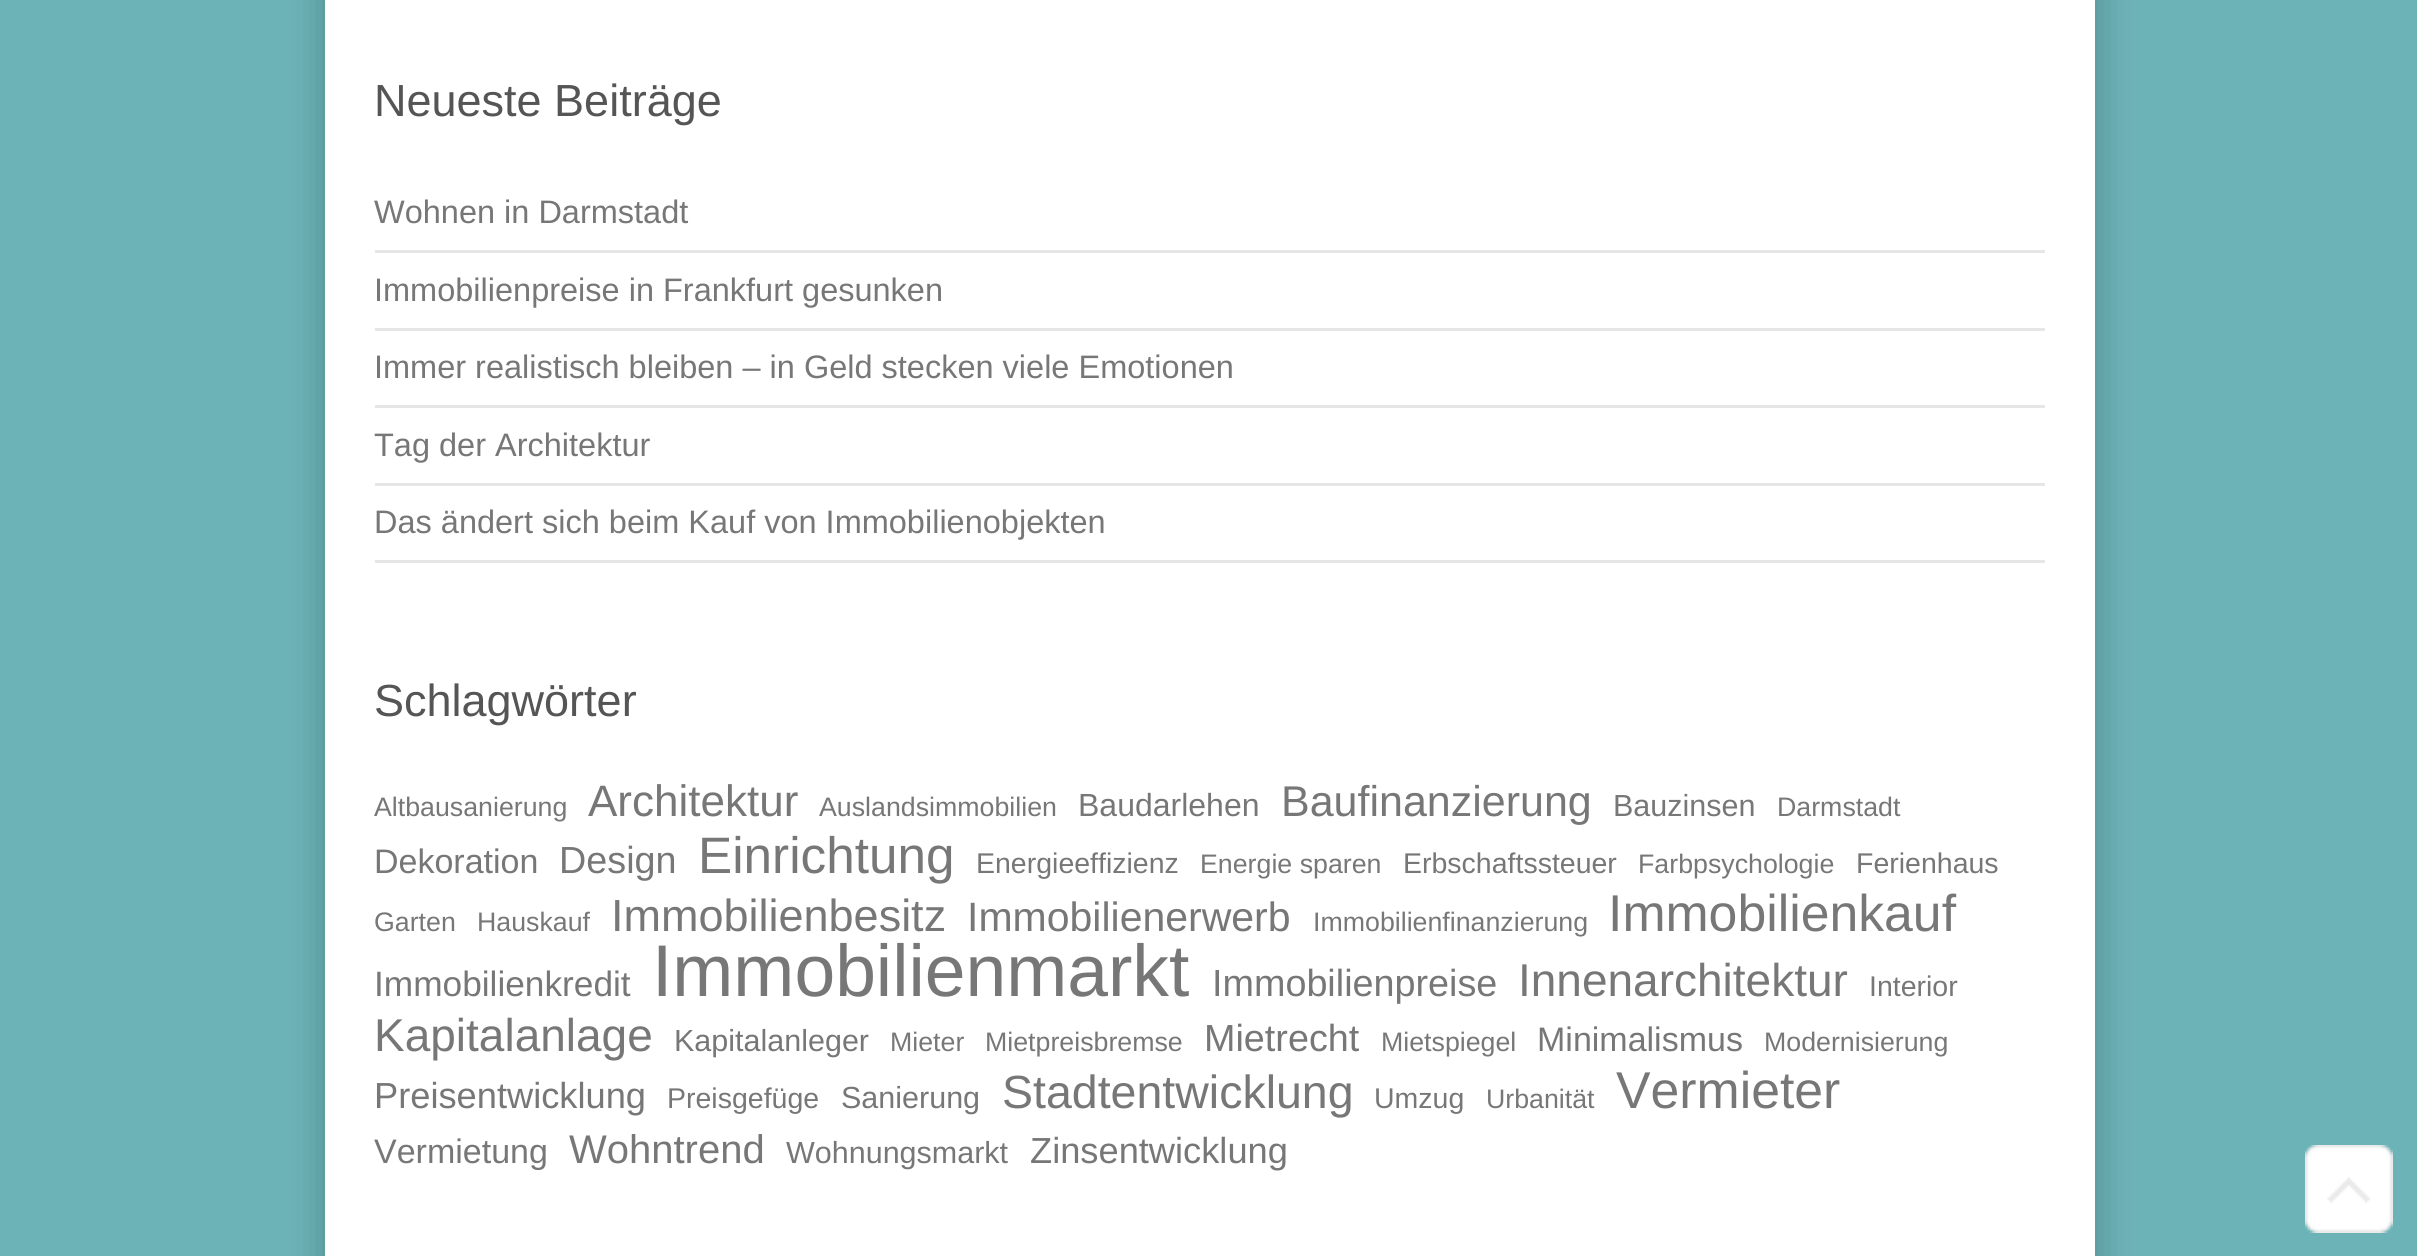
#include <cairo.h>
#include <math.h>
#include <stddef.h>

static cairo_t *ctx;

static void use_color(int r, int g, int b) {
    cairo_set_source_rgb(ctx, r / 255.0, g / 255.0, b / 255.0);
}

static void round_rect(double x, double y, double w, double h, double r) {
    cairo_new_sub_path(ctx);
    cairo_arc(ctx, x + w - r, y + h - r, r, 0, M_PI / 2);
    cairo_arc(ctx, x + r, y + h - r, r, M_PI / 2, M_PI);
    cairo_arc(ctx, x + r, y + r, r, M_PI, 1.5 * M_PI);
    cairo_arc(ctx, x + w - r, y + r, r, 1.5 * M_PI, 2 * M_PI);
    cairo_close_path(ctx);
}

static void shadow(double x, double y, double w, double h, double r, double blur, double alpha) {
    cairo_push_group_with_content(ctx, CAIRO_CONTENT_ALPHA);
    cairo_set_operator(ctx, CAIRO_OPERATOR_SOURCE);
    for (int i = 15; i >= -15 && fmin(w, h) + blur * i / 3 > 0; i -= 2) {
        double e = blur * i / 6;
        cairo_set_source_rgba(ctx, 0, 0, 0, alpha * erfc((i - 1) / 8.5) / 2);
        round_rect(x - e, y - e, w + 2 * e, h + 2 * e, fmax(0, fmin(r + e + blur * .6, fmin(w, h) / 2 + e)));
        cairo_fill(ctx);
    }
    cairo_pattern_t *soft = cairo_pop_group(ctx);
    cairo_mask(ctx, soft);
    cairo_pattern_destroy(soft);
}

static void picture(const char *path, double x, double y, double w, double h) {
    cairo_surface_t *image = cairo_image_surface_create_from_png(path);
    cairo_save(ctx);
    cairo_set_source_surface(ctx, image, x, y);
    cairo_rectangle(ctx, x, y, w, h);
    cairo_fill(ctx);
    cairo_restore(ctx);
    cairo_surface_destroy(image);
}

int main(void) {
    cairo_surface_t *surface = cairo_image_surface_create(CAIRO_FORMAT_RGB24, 2417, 1256);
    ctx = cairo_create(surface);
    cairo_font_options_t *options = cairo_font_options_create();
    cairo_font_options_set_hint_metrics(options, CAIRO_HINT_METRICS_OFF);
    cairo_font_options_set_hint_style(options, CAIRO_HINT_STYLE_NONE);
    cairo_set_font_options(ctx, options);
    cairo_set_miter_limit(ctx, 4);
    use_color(108, 179, 183);
    cairo_paint(ctx);
    use_color(0, 0, 0);
    shadow(325, -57, 1770, 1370, 0, 19, 0.25);
    use_color(255, 255, 255);
    cairo_rectangle(ctx, 325, 0, 1770, 1256);
    cairo_fill(ctx);
    cairo_select_font_face(ctx, "Liberation Sans", CAIRO_FONT_SLANT_NORMAL, CAIRO_FONT_WEIGHT_NORMAL);
    cairo_set_font_size(ctx, 45);
    use_color(85, 85, 85);
    cairo_move_to(ctx, 374, 116);
    cairo_show_text(ctx, "Neueste Beiträge");
    use_color(230, 230, 230);
    cairo_rectangle(ctx, 375, 250, 1670, 3);
    cairo_fill(ctx);
    cairo_set_font_size(ctx, 32.5);
    use_color(119, 119, 119);
    cairo_move_to(ctx, 374, 223);
    cairo_show_text(ctx, "Wohnen in Darmstadt");
    use_color(230, 230, 230);
    cairo_rectangle(ctx, 375, 328, 1670, 3);
    cairo_fill(ctx);
    use_color(119, 119, 119);
    cairo_move_to(ctx, 374, 301);
    cairo_show_text(ctx, "Immobilienpreise in Frankfurt gesunken");
    use_color(230, 230, 230);
    cairo_rectangle(ctx, 375, 405, 1670, 3);
    cairo_fill(ctx);
    use_color(119, 119, 119);
    cairo_move_to(ctx, 374, 378);
    cairo_show_text(ctx, "Immer realistisch bleiben – in Geld stecken viele Emotionen");
    use_color(230, 230, 230);
    cairo_rectangle(ctx, 375, 483, 1670, 3);
    cairo_fill(ctx);
    use_color(119, 119, 119);
    cairo_move_to(ctx, 374, 456);
    cairo_show_text(ctx, "Tag der Architektur");
    use_color(230, 230, 230);
    cairo_rectangle(ctx, 375, 560, 1670, 3);
    cairo_fill(ctx);
    use_color(119, 119, 119);
    cairo_move_to(ctx, 374, 533);
    cairo_show_text(ctx, "Das ändert sich beim Kauf von Immobilienobjekten");
    cairo_set_font_size(ctx, 45);
    use_color(85, 85, 85);
    cairo_move_to(ctx, 374, 716);
    cairo_show_text(ctx, "Schlagwörter");
    cairo_set_font_size(ctx, 26.75);
    use_color(119, 119, 119);
    cairo_move_to(ctx, 374, 816);
    cairo_show_text(ctx, "Altbausanierung");
    cairo_set_font_size(ctx, 44);
    cairo_move_to(ctx, 588, 816);
    cairo_show_text(ctx, "Architektur");
    cairo_set_font_size(ctx, 26.75);
    cairo_move_to(ctx, 819, 816);
    cairo_show_text(ctx, "Auslandsimmobilien");
    cairo_set_font_size(ctx, 32);
    cairo_move_to(ctx, 1078, 816);
    cairo_show_text(ctx, "Baudarlehen");
    cairo_set_font_size(ctx, 43);
    cairo_move_to(ctx, 1281, 816);
    cairo_show_text(ctx, "Baufinanzierung");
    cairo_set_font_size(ctx, 30.5);
    cairo_move_to(ctx, 1613, 816);
    cairo_show_text(ctx, "Bauzinsen");
    cairo_set_font_size(ctx, 26.75);
    cairo_move_to(ctx, 1777, 816);
    cairo_show_text(ctx, "Darmstadt");
    cairo_set_font_size(ctx, 34);
    cairo_move_to(ctx, 374, 873);
    cairo_show_text(ctx, "Dekoration");
    cairo_set_font_size(ctx, 37.75);
    cairo_move_to(ctx, 559, 873);
    cairo_show_text(ctx, "Design");
    cairo_set_font_size(ctx, 51.25);
    cairo_move_to(ctx, 698, 873);
    cairo_show_text(ctx, "Einrichtung");
    cairo_set_font_size(ctx, 28.5);
    cairo_move_to(ctx, 976, 873);
    cairo_show_text(ctx, "Energieeffizienz");
    cairo_set_font_size(ctx, 26.75);
    cairo_move_to(ctx, 1200, 873);
    cairo_show_text(ctx, "Energie sparen");
    cairo_set_font_size(ctx, 28.5);
    cairo_move_to(ctx, 1403, 873);
    cairo_show_text(ctx, "Erbschaftssteuer");
    cairo_set_font_size(ctx, 26.75);
    cairo_move_to(ctx, 1638, 873);
    cairo_show_text(ctx, "Farbpsychologie");
    cairo_set_font_size(ctx, 28.5);
    cairo_move_to(ctx, 1856, 873);
    cairo_show_text(ctx, "Ferienhaus");
    cairo_set_font_size(ctx, 26.75);
    cairo_move_to(ctx, 374, 931);
    cairo_show_text(ctx, "Garten");
    cairo_move_to(ctx, 477, 931);
    cairo_show_text(ctx, "Hauskauf");
    cairo_set_font_size(ctx, 45);
    cairo_move_to(ctx, 611, 931);
    cairo_show_text(ctx, "Immobilienbesitz");
    cairo_set_font_size(ctx, 41);
    cairo_move_to(ctx, 967, 931);
    cairo_show_text(ctx, "Immobilienerwerb");
    cairo_set_font_size(ctx, 26.75);
    cairo_move_to(ctx, 1313, 931);
    cairo_show_text(ctx, "Immobilienfinanzierung");
    cairo_set_font_size(ctx, 51.75);
    cairo_move_to(ctx, 1608, 931);
    cairo_show_text(ctx, "Immobilienkauf");
    cairo_set_font_size(ctx, 35.25);
    cairo_move_to(ctx, 374, 996);
    cairo_show_text(ctx, "Immobilienkredit");
    cairo_set_font_size(ctx, 73.25);
    cairo_move_to(ctx, 652, 996);
    cairo_show_text(ctx, "Immobilienmarkt");
    cairo_set_font_size(ctx, 37.75);
    cairo_move_to(ctx, 1212, 996);
    cairo_show_text(ctx, "Immobilienpreise");
    cairo_set_font_size(ctx, 46);
    cairo_move_to(ctx, 1518, 996);
    cairo_show_text(ctx, "Innenarchitektur");
    cairo_set_font_size(ctx, 28.5);
    cairo_move_to(ctx, 1869, 996);
    cairo_show_text(ctx, "Interior");
    cairo_set_font_size(ctx, 46);
    cairo_move_to(ctx, 374, 1051);
    cairo_show_text(ctx, "Kapitalanlage");
    cairo_set_font_size(ctx, 30.5);
    cairo_move_to(ctx, 674, 1051);
    cairo_show_text(ctx, "Kapitalanleger");
    cairo_set_font_size(ctx, 26.75);
    cairo_move_to(ctx, 890, 1051);
    cairo_show_text(ctx, "Mieter");
    cairo_move_to(ctx, 985, 1051);
    cairo_show_text(ctx, "Mietpreisbremse");
    cairo_set_font_size(ctx, 37.75);
    cairo_move_to(ctx, 1204, 1051);
    cairo_show_text(ctx, "Mietrecht");
    cairo_set_font_size(ctx, 26.75);
    cairo_move_to(ctx, 1381, 1051);
    cairo_show_text(ctx, "Mietspiegel");
    cairo_set_font_size(ctx, 34);
    cairo_move_to(ctx, 1537, 1051);
    cairo_show_text(ctx, "Minimalismus");
    cairo_set_font_size(ctx, 26.75);
    cairo_move_to(ctx, 1764, 1051);
    cairo_show_text(ctx, "Modernisierung");
    cairo_set_font_size(ctx, 36.25);
    cairo_move_to(ctx, 374, 1108);
    cairo_show_text(ctx, "Preisentwicklung");
    cairo_set_font_size(ctx, 28.5);
    cairo_move_to(ctx, 667, 1108);
    cairo_show_text(ctx, "Preisgefüge");
    cairo_set_font_size(ctx, 30.5);
    cairo_move_to(ctx, 841, 1108);
    cairo_show_text(ctx, "Sanierung");
    cairo_set_font_size(ctx, 46.5);
    cairo_move_to(ctx, 1002, 1108);
    cairo_show_text(ctx, "Stadtentwicklung");
    cairo_set_font_size(ctx, 28.5);
    cairo_move_to(ctx, 1374, 1108);
    cairo_show_text(ctx, "Umzug");
    cairo_set_font_size(ctx, 26.75);
    cairo_move_to(ctx, 1486, 1108);
    cairo_show_text(ctx, "Urbanität");
    cairo_set_font_size(ctx, 51.75);
    cairo_move_to(ctx, 1616, 1108);
    cairo_show_text(ctx, "Vermieter");
    cairo_set_font_size(ctx, 34);
    cairo_move_to(ctx, 374, 1163);
    cairo_show_text(ctx, "Vermietung");
    cairo_set_font_size(ctx, 40);
    cairo_move_to(ctx, 569, 1163);
    cairo_show_text(ctx, "Wohntrend");
    cairo_set_font_size(ctx, 30.5);
    cairo_move_to(ctx, 786, 1163);
    cairo_show_text(ctx, "Wohnungsmarkt");
    cairo_set_font_size(ctx, 36.25);
    cairo_move_to(ctx, 1030, 1163);
    cairo_show_text(ctx, "Zinsentwicklung");
    picture("img1.png", 2305, 1145, 88, 88);
    cairo_surface_write_to_png(surface, "result.png");
    cairo_font_options_destroy(options);
    cairo_destroy(ctx);
    cairo_surface_destroy(surface);
    return 0;
}
